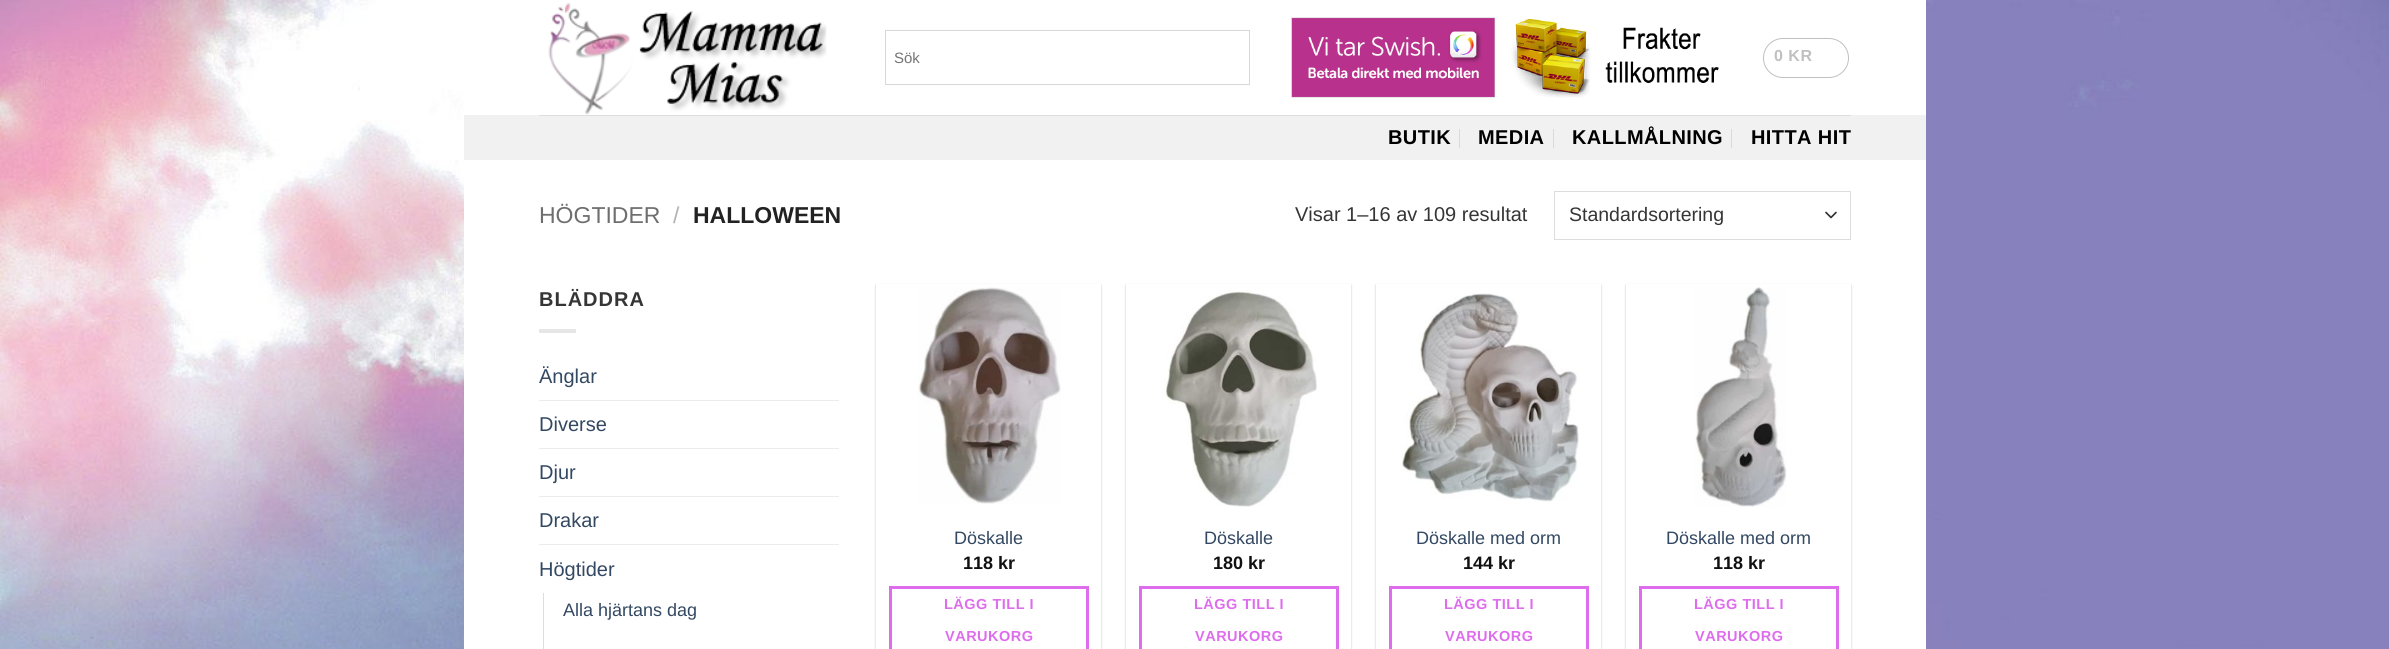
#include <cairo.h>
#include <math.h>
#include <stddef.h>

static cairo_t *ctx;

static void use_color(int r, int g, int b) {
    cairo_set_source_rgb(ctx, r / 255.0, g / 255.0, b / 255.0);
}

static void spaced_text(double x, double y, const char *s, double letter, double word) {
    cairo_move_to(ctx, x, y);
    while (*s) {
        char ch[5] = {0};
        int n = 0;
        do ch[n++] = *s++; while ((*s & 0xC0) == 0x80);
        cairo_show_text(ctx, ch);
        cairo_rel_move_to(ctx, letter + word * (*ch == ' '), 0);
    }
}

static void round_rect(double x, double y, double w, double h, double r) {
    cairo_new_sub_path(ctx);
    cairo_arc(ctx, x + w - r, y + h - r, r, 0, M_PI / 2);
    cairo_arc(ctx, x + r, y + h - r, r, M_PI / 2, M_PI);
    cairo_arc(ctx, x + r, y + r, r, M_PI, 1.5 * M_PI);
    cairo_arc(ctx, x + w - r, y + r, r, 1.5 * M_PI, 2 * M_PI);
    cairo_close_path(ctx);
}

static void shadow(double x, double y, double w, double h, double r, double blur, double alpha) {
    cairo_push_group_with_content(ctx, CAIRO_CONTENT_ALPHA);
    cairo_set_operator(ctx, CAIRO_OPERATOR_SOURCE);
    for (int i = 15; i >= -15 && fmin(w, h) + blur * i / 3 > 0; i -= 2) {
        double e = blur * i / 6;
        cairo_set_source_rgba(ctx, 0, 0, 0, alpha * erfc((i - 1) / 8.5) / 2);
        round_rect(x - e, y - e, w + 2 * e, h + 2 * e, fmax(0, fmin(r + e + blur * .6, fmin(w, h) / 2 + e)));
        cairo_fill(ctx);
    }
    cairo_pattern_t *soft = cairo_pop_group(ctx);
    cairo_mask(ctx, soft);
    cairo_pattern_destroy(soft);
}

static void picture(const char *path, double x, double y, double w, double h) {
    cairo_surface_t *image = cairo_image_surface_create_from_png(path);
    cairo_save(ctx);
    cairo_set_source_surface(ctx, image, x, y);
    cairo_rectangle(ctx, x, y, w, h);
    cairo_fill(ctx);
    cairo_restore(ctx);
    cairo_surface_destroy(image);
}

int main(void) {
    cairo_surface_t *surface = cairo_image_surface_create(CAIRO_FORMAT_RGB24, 2389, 649);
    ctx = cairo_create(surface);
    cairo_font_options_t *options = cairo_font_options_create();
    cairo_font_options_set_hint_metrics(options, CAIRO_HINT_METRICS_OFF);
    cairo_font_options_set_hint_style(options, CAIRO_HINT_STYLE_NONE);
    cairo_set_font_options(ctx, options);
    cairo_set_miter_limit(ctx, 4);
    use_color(255, 255, 255);
    cairo_paint(ctx);
    picture("img1.png", 0, 0, 2389, 649);
    use_color(255, 255, 255);
    cairo_rectangle(ctx, 464, 0, 1462, 649);
    cairo_fill(ctx);
    picture("img2.png", 548, 2, 279, 113);
    cairo_rectangle(ctx, 885.5, 30.5, 364, 54);
    use_color(216, 216, 216);
    cairo_set_line_width(ctx, 1);
    cairo_stroke(ctx);
    cairo_select_font_face(ctx, "Liberation Sans", CAIRO_FONT_SLANT_NORMAL, CAIRO_FONT_WEIGHT_NORMAL);
    cairo_set_font_size(ctx, 15);
    use_color(117, 117, 117);
    cairo_move_to(ctx, 894, 63);
    cairo_show_text(ctx, "Sök");
    picture("img3.png", 1291, 17, 428, 81);
    round_rect(1763.5, 38.5, 85, 39, 19.5);
    use_color(192, 192, 192);
    cairo_stroke(ctx);
    cairo_select_font_face(ctx, "Liberation Sans", CAIRO_FONT_SLANT_NORMAL, CAIRO_FONT_WEIGHT_BOLD);
    cairo_set_font_size(ctx, 16);
    spaced_text(1774, 61, "0 KR", 0.5, 0);
    use_color(241, 241, 241);
    cairo_rectangle(ctx, 464, 115, 1462, 45);
    cairo_fill(ctx);
    use_color(222, 222, 222);
    cairo_rectangle(ctx, 539, 115, 1312, 1);
    cairo_fill(ctx);
    cairo_set_font_size(ctx, 20);
    use_color(0, 0, 0);
    spaced_text(1388, 144, "BUTIK", 0.4, 0);
    use_color(217, 217, 217);
    cairo_rectangle(ctx, 1459, 129, 1, 19);
    cairo_fill(ctx);
    use_color(0, 0, 0);
    spaced_text(1478, 144, "MEDIA", 0.4, 0);
    use_color(217, 217, 217);
    cairo_rectangle(ctx, 1553, 129, 1, 19);
    cairo_fill(ctx);
    use_color(0, 0, 0);
    spaced_text(1572, 144, "KALLMÅLNING", 0.4, 0);
    use_color(217, 217, 217);
    cairo_rectangle(ctx, 1731, 129, 1, 19);
    cairo_fill(ctx);
    use_color(0, 0, 0);
    spaced_text(1751, 144, "HITTA HIT", 0.4, 0);
    cairo_select_font_face(ctx, "Liberation Sans", CAIRO_FONT_SLANT_NORMAL, CAIRO_FONT_WEIGHT_NORMAL);
    cairo_set_font_size(ctx, 23);
    use_color(110, 110, 110);
    cairo_move_to(ctx, 539, 223);
    cairo_show_text(ctx, "HÖGTIDER");
    use_color(178, 178, 178);
    cairo_move_to(ctx, 673, 223);
    cairo_show_text(ctx, "/");
    cairo_select_font_face(ctx, "Liberation Sans", CAIRO_FONT_SLANT_NORMAL, CAIRO_FONT_WEIGHT_BOLD);
    use_color(34, 34, 34);
    cairo_move_to(ctx, 693, 223);
    cairo_show_text(ctx, "HALLOWEEN");
    cairo_select_font_face(ctx, "Liberation Sans", CAIRO_FONT_SLANT_NORMAL, CAIRO_FONT_WEIGHT_NORMAL);
    cairo_set_font_size(ctx, 20);
    use_color(53, 53, 53);
    cairo_move_to(ctx, 1295, 221);
    cairo_show_text(ctx, "Visar 1–16 av 109 resultat");
    cairo_new_path(ctx);
    cairo_move_to(ctx, 1826, 212.5);
    cairo_line_to(ctx, 1831, 217.5);
    cairo_line_to(ctx, 1836, 212.5);
    use_color(51, 51, 51);
    cairo_set_line_width(ctx, 1.7);
    cairo_set_line_cap(ctx, CAIRO_LINE_CAP_ROUND);
    cairo_set_line_join(ctx, CAIRO_LINE_JOIN_ROUND);
    cairo_stroke(ctx);
    cairo_rectangle(ctx, 1554.5, 191.5, 296, 48);
    use_color(221, 221, 221);
    cairo_set_line_width(ctx, 1);
    cairo_set_line_cap(ctx, CAIRO_LINE_CAP_BUTT);
    cairo_set_line_join(ctx, CAIRO_LINE_JOIN_MITER);
    cairo_stroke(ctx);
    cairo_set_font_size(ctx, 19.5);
    use_color(53, 53, 53);
    cairo_move_to(ctx, 1569, 221);
    cairo_show_text(ctx, "Standardsortering");
    cairo_select_font_face(ctx, "Liberation Sans", CAIRO_FONT_SLANT_NORMAL, CAIRO_FONT_WEIGHT_BOLD);
    cairo_set_font_size(ctx, 20);
    spaced_text(539, 306, "BLÄDDRA", 1, 0);
    use_color(230, 230, 230);
    cairo_rectangle(ctx, 539, 329, 37, 4);
    cairo_fill(ctx);
    cairo_select_font_face(ctx, "Liberation Sans", CAIRO_FONT_SLANT_NORMAL, CAIRO_FONT_WEIGHT_NORMAL);
    use_color(51, 72, 98);
    cairo_move_to(ctx, 539, 383);
    cairo_show_text(ctx, "Änglar");
    use_color(236, 236, 236);
    cairo_rectangle(ctx, 539, 400, 300, 1);
    cairo_fill(ctx);
    use_color(51, 72, 98);
    cairo_move_to(ctx, 539, 431);
    cairo_show_text(ctx, "Diverse");
    use_color(236, 236, 236);
    cairo_rectangle(ctx, 539, 448, 300, 1);
    cairo_fill(ctx);
    use_color(51, 72, 98);
    cairo_move_to(ctx, 539, 479);
    cairo_show_text(ctx, "Djur");
    use_color(236, 236, 236);
    cairo_rectangle(ctx, 539, 496, 300, 1);
    cairo_fill(ctx);
    use_color(51, 72, 98);
    cairo_move_to(ctx, 539, 527);
    cairo_show_text(ctx, "Drakar");
    use_color(236, 236, 236);
    cairo_rectangle(ctx, 539, 544, 300, 1);
    cairo_fill(ctx);
    use_color(51, 72, 98);
    cairo_move_to(ctx, 539, 576);
    cairo_show_text(ctx, "Högtider");
    use_color(221, 221, 221);
    cairo_rectangle(ctx, 543, 593, 1, 56);
    cairo_fill(ctx);
    cairo_set_font_size(ctx, 18);
    use_color(51, 72, 98);
    cairo_move_to(ctx, 563, 616);
    cairo_show_text(ctx, "Alla hjärtans dag");
    use_color(0, 0, 0);
    shadow(876, 285, 225, 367, 0, 1, 0.24);
    use_color(255, 255, 255);
    cairo_rectangle(ctx, 876, 284, 225, 365);
    cairo_fill(ctx);
    picture("img4.png", 918, 287, 143, 217);
    use_color(51, 72, 98);
    cairo_move_to(ctx, 954, 544);
    cairo_show_text(ctx, "Döskalle");
    cairo_select_font_face(ctx, "Liberation Sans", CAIRO_FONT_SLANT_NORMAL, CAIRO_FONT_WEIGHT_BOLD);
    use_color(17, 17, 17);
    cairo_move_to(ctx, 963, 569);
    cairo_show_text(ctx, "118 kr");
    cairo_rectangle(ctx, 890.5, 587.5, 197, 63);
    use_color(222, 109, 237);
    cairo_set_line_width(ctx, 3);
    cairo_stroke(ctx);
    cairo_set_font_size(ctx, 14.5);
    spaced_text(944, 609, "LÄGG TILL I", 0.5, 0);
    spaced_text(945, 641, "VARUKORG", 0.5, 0);
    use_color(0, 0, 0);
    shadow(1126, 285, 225, 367, 0, 1, 0.24);
    use_color(255, 255, 255);
    cairo_rectangle(ctx, 1126, 284, 225, 365);
    cairo_fill(ctx);
    picture("img5.png", 1162, 290, 155, 217);
    cairo_select_font_face(ctx, "Liberation Sans", CAIRO_FONT_SLANT_NORMAL, CAIRO_FONT_WEIGHT_NORMAL);
    cairo_set_font_size(ctx, 18);
    use_color(51, 72, 98);
    cairo_move_to(ctx, 1204, 544);
    cairo_show_text(ctx, "Döskalle");
    cairo_select_font_face(ctx, "Liberation Sans", CAIRO_FONT_SLANT_NORMAL, CAIRO_FONT_WEIGHT_BOLD);
    use_color(17, 17, 17);
    cairo_move_to(ctx, 1213, 569);
    cairo_show_text(ctx, "180 kr");
    cairo_rectangle(ctx, 1140.5, 587.5, 197, 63);
    use_color(222, 109, 237);
    cairo_stroke(ctx);
    cairo_set_font_size(ctx, 14.5);
    spaced_text(1194, 609, "LÄGG TILL I", 0.5, 0);
    spaced_text(1195, 641, "VARUKORG", 0.5, 0);
    use_color(0, 0, 0);
    shadow(1376, 285, 225, 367, 0, 1, 0.24);
    use_color(255, 255, 255);
    cairo_rectangle(ctx, 1376, 284, 225, 365);
    cairo_fill(ctx);
    picture("img6.png", 1401, 293, 178, 209);
    cairo_select_font_face(ctx, "Liberation Sans", CAIRO_FONT_SLANT_NORMAL, CAIRO_FONT_WEIGHT_NORMAL);
    cairo_set_font_size(ctx, 18);
    use_color(51, 72, 98);
    cairo_move_to(ctx, 1416, 544);
    cairo_show_text(ctx, "Döskalle med orm");
    cairo_select_font_face(ctx, "Liberation Sans", CAIRO_FONT_SLANT_NORMAL, CAIRO_FONT_WEIGHT_BOLD);
    use_color(17, 17, 17);
    cairo_move_to(ctx, 1463, 569);
    cairo_show_text(ctx, "144 kr");
    cairo_rectangle(ctx, 1390.5, 587.5, 197, 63);
    use_color(222, 109, 237);
    cairo_stroke(ctx);
    cairo_set_font_size(ctx, 14.5);
    spaced_text(1444, 609, "LÄGG TILL I", 0.5, 0);
    spaced_text(1445, 641, "VARUKORG", 0.5, 0);
    use_color(0, 0, 0);
    shadow(1626, 285, 225, 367, 0, 1, 0.24);
    use_color(255, 255, 255);
    cairo_rectangle(ctx, 1626, 284, 225, 365);
    cairo_fill(ctx);
    picture("img7.png", 1695, 287, 92, 220);
    cairo_select_font_face(ctx, "Liberation Sans", CAIRO_FONT_SLANT_NORMAL, CAIRO_FONT_WEIGHT_NORMAL);
    cairo_set_font_size(ctx, 18);
    use_color(51, 72, 98);
    cairo_move_to(ctx, 1666, 544);
    cairo_show_text(ctx, "Döskalle med orm");
    cairo_select_font_face(ctx, "Liberation Sans", CAIRO_FONT_SLANT_NORMAL, CAIRO_FONT_WEIGHT_BOLD);
    use_color(17, 17, 17);
    cairo_move_to(ctx, 1713, 569);
    cairo_show_text(ctx, "118 kr");
    cairo_rectangle(ctx, 1640.5, 587.5, 197, 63);
    use_color(222, 109, 237);
    cairo_stroke(ctx);
    cairo_set_font_size(ctx, 14.5);
    spaced_text(1694, 609, "LÄGG TILL I", 0.5, 0);
    spaced_text(1695, 641, "VARUKORG", 0.5, 0);
    cairo_surface_write_to_png(surface, "result.png");
    cairo_font_options_destroy(options);
    cairo_destroy(ctx);
    cairo_surface_destroy(surface);
    return 0;
}
